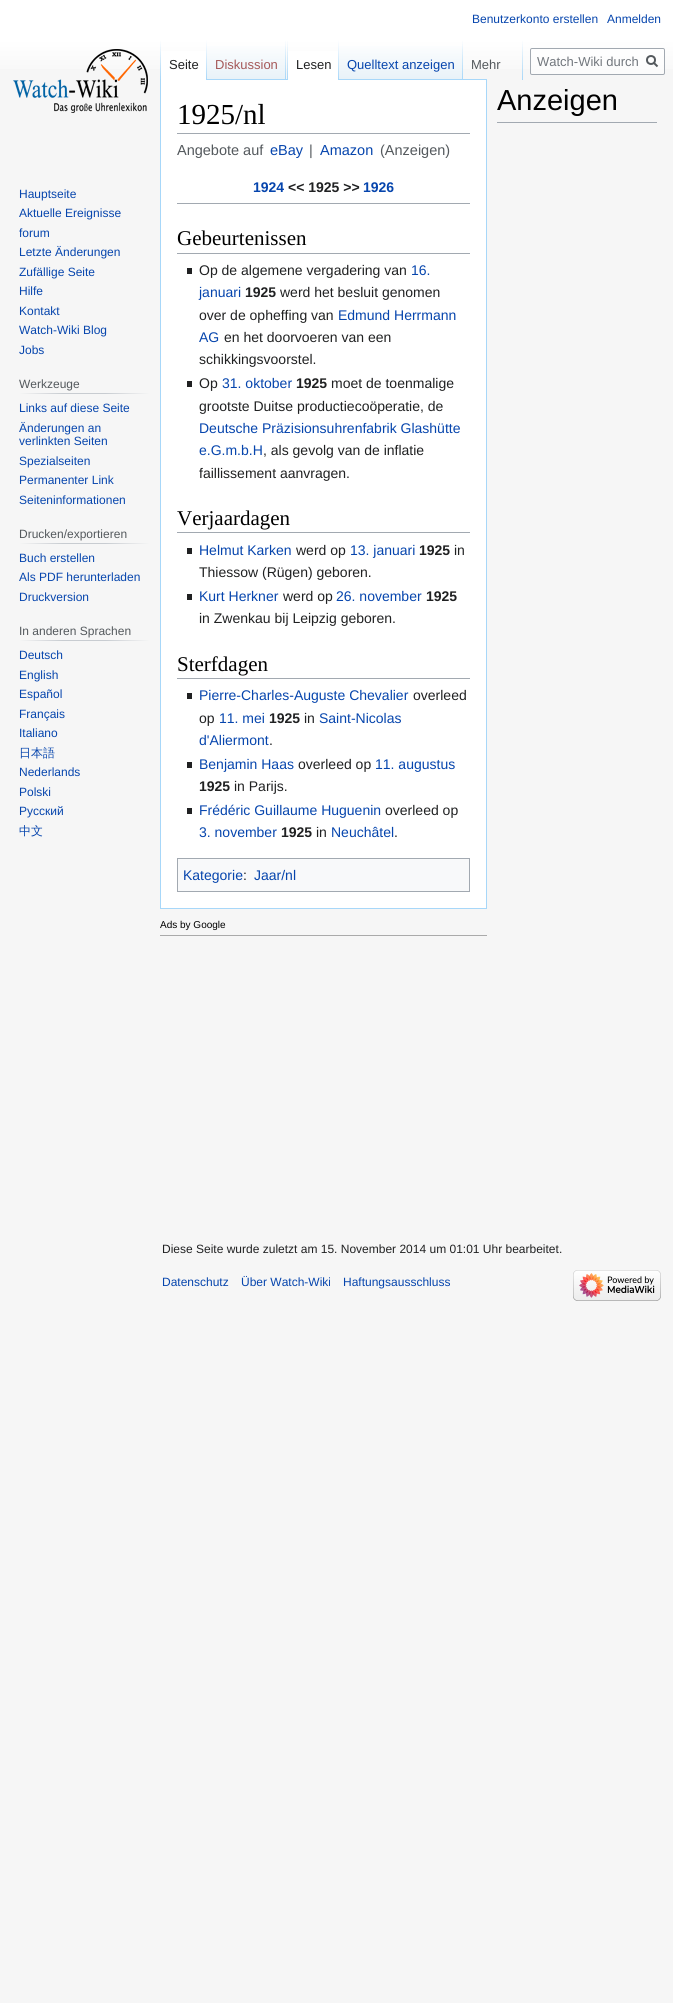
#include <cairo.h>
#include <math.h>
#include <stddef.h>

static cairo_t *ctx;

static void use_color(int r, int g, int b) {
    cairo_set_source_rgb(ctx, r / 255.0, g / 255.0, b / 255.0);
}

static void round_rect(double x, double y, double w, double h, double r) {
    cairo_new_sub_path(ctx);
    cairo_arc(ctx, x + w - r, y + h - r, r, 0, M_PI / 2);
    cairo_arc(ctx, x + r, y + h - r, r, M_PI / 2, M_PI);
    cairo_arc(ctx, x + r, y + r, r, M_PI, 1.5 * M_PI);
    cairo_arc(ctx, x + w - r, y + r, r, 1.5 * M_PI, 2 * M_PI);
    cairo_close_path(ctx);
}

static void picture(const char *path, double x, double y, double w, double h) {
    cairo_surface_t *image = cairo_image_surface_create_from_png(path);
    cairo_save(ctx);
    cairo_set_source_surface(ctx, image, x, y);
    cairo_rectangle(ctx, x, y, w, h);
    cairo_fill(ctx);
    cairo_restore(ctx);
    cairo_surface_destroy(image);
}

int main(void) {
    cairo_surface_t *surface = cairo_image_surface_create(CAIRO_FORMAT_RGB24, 673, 2003);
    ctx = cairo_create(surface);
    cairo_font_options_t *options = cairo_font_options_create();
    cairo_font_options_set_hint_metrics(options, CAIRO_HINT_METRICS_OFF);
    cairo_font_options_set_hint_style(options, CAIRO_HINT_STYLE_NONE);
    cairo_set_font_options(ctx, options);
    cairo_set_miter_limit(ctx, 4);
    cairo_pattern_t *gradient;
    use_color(246, 246, 246);
    cairo_paint(ctx);
    gradient = cairo_pattern_create_linear(337, 0, 337, 80);
    cairo_pattern_add_color_stop_rgba(gradient, 0.5, 1, 1, 1, 1);
    cairo_pattern_add_color_stop_rgba(gradient, 1, 0.965, 0.965, 0.965, 1);
    cairo_set_source(ctx, gradient);
    cairo_pattern_destroy(gradient);
    cairo_rectangle(ctx, 0, 0, 673, 69);
    cairo_fill(ctx);
    cairo_select_font_face(ctx, "Liberation Sans", CAIRO_FONT_SLANT_NORMAL, CAIRO_FONT_WEIGHT_NORMAL);
    cairo_set_font_size(ctx, 12);
    use_color(6, 69, 173);
    cairo_move_to(ctx, 472, 23);
    cairo_show_text(ctx, "Benutzerkonto erstellen");
    cairo_move_to(ctx, 607, 23);
    cairo_show_text(ctx, "Anmelden");
    use_color(255, 255, 255);
    cairo_rectangle(ctx, 160.5, 79.5, 326, 829);
    cairo_fill_preserve(ctx);
    use_color(167, 215, 249);
    cairo_set_line_width(ctx, 1);
    cairo_stroke(ctx);
    gradient = cairo_pattern_create_linear(161, 40, 161, 80);
    cairo_pattern_add_color_stop_rgba(gradient, 0, 0.655, 0.843, 0.976, 0);
    cairo_pattern_add_color_stop_rgba(gradient, 1, 0.655, 0.843, 0.976, 1);
    cairo_set_source(ctx, gradient);
    cairo_pattern_destroy(gradient);
    cairo_rectangle(ctx, 160, 40, 1, 40);
    cairo_fill(ctx);
    use_color(255, 255, 255);
    cairo_rectangle(ctx, 161, 51, 45, 29);
    cairo_fill(ctx);
    gradient = cairo_pattern_create_linear(207, 40, 207, 80);
    cairo_pattern_add_color_stop_rgba(gradient, 0, 1, 1, 1, 1);
    cairo_pattern_add_color_stop_rgba(gradient, 1, 0.655, 0.843, 0.976, 1);
    cairo_set_source(ctx, gradient);
    cairo_pattern_destroy(gradient);
    cairo_rectangle(ctx, 206, 40, 1, 40);
    cairo_fill(ctx);
    cairo_set_font_size(ctx, 13);
    use_color(32, 33, 34);
    cairo_move_to(ctx, 169, 69);
    cairo_show_text(ctx, "Seite");
    gradient = cairo_pattern_create_linear(247, 80, 247, 40);
    cairo_pattern_add_color_stop_rgba(gradient, 0, 0.467, 0.757, 0.965, 1);
    cairo_pattern_add_color_stop_rgba(gradient, 0.03, 0.91, 0.949, 0.973, 1);
    cairo_pattern_add_color_stop_rgba(gradient, 1, 1, 1, 1, 1);
    cairo_set_source(ctx, gradient);
    cairo_pattern_destroy(gradient);
    cairo_rectangle(ctx, 207, 46, 79, 33);
    cairo_fill(ctx);
    gradient = cairo_pattern_create_linear(286, 40, 286, 80);
    cairo_pattern_add_color_stop_rgba(gradient, 0, 0.655, 0.843, 0.976, 0);
    cairo_pattern_add_color_stop_rgba(gradient, 1, 0.655, 0.843, 0.976, 1);
    cairo_set_source(ctx, gradient);
    cairo_pattern_destroy(gradient);
    cairo_rectangle(ctx, 285, 40, 1, 40);
    cairo_fill(ctx);
    use_color(165, 88, 88);
    cairo_move_to(ctx, 215, 69);
    cairo_show_text(ctx, "Diskussion");
    gradient = cairo_pattern_create_linear(288, 40, 288, 80);
    cairo_pattern_add_color_stop_rgba(gradient, 0, 0.655, 0.843, 0.976, 0);
    cairo_pattern_add_color_stop_rgba(gradient, 1, 0.655, 0.843, 0.976, 1);
    cairo_set_source(ctx, gradient);
    cairo_pattern_destroy(gradient);
    cairo_rectangle(ctx, 287, 40, 1, 40);
    cairo_fill(ctx);
    use_color(255, 255, 255);
    cairo_rectangle(ctx, 288, 51, 50, 29);
    cairo_fill(ctx);
    gradient = cairo_pattern_create_linear(339, 40, 339, 80);
    cairo_pattern_add_color_stop_rgba(gradient, 0, 1, 1, 1, 1);
    cairo_pattern_add_color_stop_rgba(gradient, 1, 0.655, 0.843, 0.976, 1);
    cairo_set_source(ctx, gradient);
    cairo_pattern_destroy(gradient);
    cairo_rectangle(ctx, 338, 40, 1, 40);
    cairo_fill(ctx);
    use_color(32, 33, 34);
    cairo_move_to(ctx, 296, 69);
    cairo_show_text(ctx, "Lesen");
    gradient = cairo_pattern_create_linear(401, 80, 401, 40);
    cairo_pattern_add_color_stop_rgba(gradient, 0, 0.467, 0.757, 0.965, 1);
    cairo_pattern_add_color_stop_rgba(gradient, 0.03, 0.91, 0.949, 0.973, 1);
    cairo_pattern_add_color_stop_rgba(gradient, 1, 1, 1, 1, 1);
    cairo_set_source(ctx, gradient);
    cairo_pattern_destroy(gradient);
    cairo_rectangle(ctx, 339, 46, 124, 33);
    cairo_fill(ctx);
    gradient = cairo_pattern_create_linear(463, 40, 463, 80);
    cairo_pattern_add_color_stop_rgba(gradient, 0, 0.655, 0.843, 0.976, 0);
    cairo_pattern_add_color_stop_rgba(gradient, 1, 0.655, 0.843, 0.976, 1);
    cairo_set_source(ctx, gradient);
    cairo_pattern_destroy(gradient);
    cairo_rectangle(ctx, 462, 40, 1, 40);
    cairo_fill(ctx);
    use_color(6, 69, 173);
    cairo_move_to(ctx, 347, 69);
    cairo_show_text(ctx, "Quelltext anzeigen");
    gradient = cairo_pattern_create_linear(523, 40, 523, 80);
    cairo_pattern_add_color_stop_rgba(gradient, 0, 0.655, 0.843, 0.976, 0);
    cairo_pattern_add_color_stop_rgba(gradient, 1, 0.655, 0.843, 0.976, 1);
    cairo_set_source(ctx, gradient);
    cairo_pattern_destroy(gradient);
    cairo_rectangle(ctx, 522, 40, 1, 40);
    cairo_fill(ctx);
    use_color(84, 89, 93);
    cairo_move_to(ctx, 471, 69);
    cairo_show_text(ctx, "Mehr");
    cairo_set_source_rgba(ctx, 1, 1, 1, 0.5);
    round_rect(530.5, 48.5, 134, 26, 1.5);
    cairo_fill_preserve(ctx);
    use_color(162, 169, 177);
    cairo_stroke(ctx);
    use_color(114, 119, 125);
    cairo_move_to(ctx, 537, 66);
    cairo_show_text(ctx, "Watch-Wiki durch");
    cairo_new_path(ctx);
    cairo_move_to(ctx, 657.5, 66.5);
    cairo_line_to(ctx, 653.5, 62.5);
    use_color(84, 89, 93);
    cairo_set_line_width(ctx, 2);
    cairo_stroke(ctx);
    cairo_arc(ctx, 651, 60, 4, 0, 2 * M_PI);
    cairo_stroke(ctx);
    picture("img1.png", 13, 49, 135, 64);
    cairo_set_font_size(ctx, 12);
    use_color(6, 69, 173);
    cairo_move_to(ctx, 19, 198);
    cairo_show_text(ctx, "Hauptseite");
    cairo_move_to(ctx, 19, 217);
    cairo_show_text(ctx, "Aktuelle Ereignisse");
    cairo_move_to(ctx, 19, 237);
    cairo_show_text(ctx, "forum");
    cairo_move_to(ctx, 19, 256);
    cairo_show_text(ctx, "Letzte Änderungen");
    cairo_move_to(ctx, 19, 276);
    cairo_show_text(ctx, "Zufällige Seite");
    cairo_move_to(ctx, 19, 295);
    cairo_show_text(ctx, "Hilfe");
    cairo_move_to(ctx, 19, 315);
    cairo_show_text(ctx, "Kontakt");
    cairo_move_to(ctx, 19, 334);
    cairo_show_text(ctx, "Watch-Wiki Blog");
    cairo_move_to(ctx, 19, 354);
    cairo_show_text(ctx, "Jobs");
    gradient = cairo_pattern_create_linear(19, 394, 150, 394);
    cairo_pattern_add_color_stop_rgba(gradient, 0, 0.965, 0.965, 0.965, 1);
    cairo_pattern_add_color_stop_rgba(gradient, 0.33, 0.784, 0.8, 0.82, 1);
    cairo_pattern_add_color_stop_rgba(gradient, 0.66, 0.784, 0.8, 0.82, 1);
    cairo_pattern_add_color_stop_rgba(gradient, 1, 0.965, 0.965, 0.965, 1);
    cairo_set_source(ctx, gradient);
    cairo_pattern_destroy(gradient);
    cairo_rectangle(ctx, 19, 393, 131, 1);
    cairo_fill(ctx);
    use_color(84, 89, 93);
    cairo_move_to(ctx, 19, 388);
    cairo_show_text(ctx, "Werkzeuge");
    use_color(6, 69, 173);
    cairo_move_to(ctx, 19, 412);
    cairo_show_text(ctx, "Links auf diese Seite");
    cairo_move_to(ctx, 19, 432);
    cairo_show_text(ctx, "Änderungen an");
    cairo_move_to(ctx, 19, 445);
    cairo_show_text(ctx, "verlinkten Seiten");
    cairo_move_to(ctx, 19, 465);
    cairo_show_text(ctx, "Spezialseiten");
    cairo_move_to(ctx, 19, 484);
    cairo_show_text(ctx, "Permanenter Link");
    cairo_move_to(ctx, 19, 504);
    cairo_show_text(ctx, "Seiteninformationen");
    gradient = cairo_pattern_create_linear(19, 544, 150, 544);
    cairo_pattern_add_color_stop_rgba(gradient, 0, 0.965, 0.965, 0.965, 1);
    cairo_pattern_add_color_stop_rgba(gradient, 0.33, 0.784, 0.8, 0.82, 1);
    cairo_pattern_add_color_stop_rgba(gradient, 0.66, 0.784, 0.8, 0.82, 1);
    cairo_pattern_add_color_stop_rgba(gradient, 1, 0.965, 0.965, 0.965, 1);
    cairo_set_source(ctx, gradient);
    cairo_pattern_destroy(gradient);
    cairo_rectangle(ctx, 19, 543, 131, 1);
    cairo_fill(ctx);
    use_color(84, 89, 93);
    cairo_move_to(ctx, 19, 538);
    cairo_show_text(ctx, "Drucken/exportieren");
    use_color(6, 69, 173);
    cairo_move_to(ctx, 19, 562);
    cairo_show_text(ctx, "Buch erstellen");
    cairo_move_to(ctx, 19, 581);
    cairo_show_text(ctx, "Als PDF herunterladen");
    cairo_move_to(ctx, 19, 601);
    cairo_show_text(ctx, "Druckversion");
    gradient = cairo_pattern_create_linear(19, 641, 150, 641);
    cairo_pattern_add_color_stop_rgba(gradient, 0, 0.965, 0.965, 0.965, 1);
    cairo_pattern_add_color_stop_rgba(gradient, 0.33, 0.784, 0.8, 0.82, 1);
    cairo_pattern_add_color_stop_rgba(gradient, 0.66, 0.784, 0.8, 0.82, 1);
    cairo_pattern_add_color_stop_rgba(gradient, 1, 0.965, 0.965, 0.965, 1);
    cairo_set_source(ctx, gradient);
    cairo_pattern_destroy(gradient);
    cairo_rectangle(ctx, 19, 640, 131, 1);
    cairo_fill(ctx);
    use_color(84, 89, 93);
    cairo_move_to(ctx, 19, 635);
    cairo_show_text(ctx, "In anderen Sprachen");
    use_color(6, 69, 173);
    cairo_move_to(ctx, 19, 659);
    cairo_show_text(ctx, "Deutsch");
    cairo_move_to(ctx, 19, 679);
    cairo_show_text(ctx, "English");
    cairo_move_to(ctx, 19, 698);
    cairo_show_text(ctx, "Español");
    cairo_move_to(ctx, 19, 718);
    cairo_show_text(ctx, "Français");
    cairo_move_to(ctx, 19, 737);
    cairo_show_text(ctx, "Italiano");
    cairo_select_font_face(ctx, "WenQuanYi Zen Hei Medium", CAIRO_FONT_SLANT_NORMAL, CAIRO_FONT_WEIGHT_NORMAL);
    cairo_move_to(ctx, 19, 757);
    cairo_show_text(ctx, "日本語");
    cairo_select_font_face(ctx, "Liberation Sans", CAIRO_FONT_SLANT_NORMAL, CAIRO_FONT_WEIGHT_NORMAL);
    cairo_move_to(ctx, 19, 776);
    cairo_show_text(ctx, "Nederlands");
    cairo_move_to(ctx, 19, 796);
    cairo_show_text(ctx, "Polski");
    cairo_move_to(ctx, 19, 815);
    cairo_show_text(ctx, "Русский");
    cairo_select_font_face(ctx, "WenQuanYi Zen Hei Medium", CAIRO_FONT_SLANT_NORMAL, CAIRO_FONT_WEIGHT_NORMAL);
    cairo_move_to(ctx, 19, 835);
    cairo_show_text(ctx, "中文");
    use_color(162, 169, 177);
    cairo_rectangle(ctx, 497, 122, 160, 1);
    cairo_fill(ctx);
    cairo_select_font_face(ctx, "Liberation Sans", CAIRO_FONT_SLANT_NORMAL, CAIRO_FONT_WEIGHT_NORMAL);
    cairo_set_font_size(ctx, 29);
    use_color(0, 0, 0);
    cairo_move_to(ctx, 497, 110);
    cairo_show_text(ctx, "Anzeigen");
    cairo_set_font_size(ctx, 10);
    cairo_move_to(ctx, 160, 928);
    cairo_show_text(ctx, "Ads by Google");
    use_color(170, 170, 170);
    cairo_rectangle(ctx, 160, 935, 327, 1);
    cairo_fill(ctx);
    cairo_set_font_size(ctx, 12);
    use_color(32, 33, 34);
    cairo_move_to(ctx, 162, 1253);
    cairo_show_text(ctx, "Diese Seite wurde zuletzt am 15. November 2014 um 01:01 Uhr bearbeitet.");
    use_color(6, 69, 173);
    cairo_move_to(ctx, 162, 1286);
    cairo_show_text(ctx, "Datenschutz");
    cairo_move_to(ctx, 241, 1286);
    cairo_show_text(ctx, "Über Watch-Wiki");
    cairo_move_to(ctx, 343, 1286);
    cairo_show_text(ctx, "Haftungsausschluss");
    picture("img2.png", 573, 1270, 88, 31);
    use_color(162, 169, 177);
    cairo_rectangle(ctx, 177, 133, 293, 1);
    cairo_fill(ctx);
    cairo_select_font_face(ctx, "Liberation Serif", CAIRO_FONT_SLANT_NORMAL, CAIRO_FONT_WEIGHT_NORMAL);
    cairo_set_font_size(ctx, 29);
    use_color(0, 0, 0);
    cairo_move_to(ctx, 177, 124);
    cairo_show_text(ctx, "1925/nl");
    cairo_select_font_face(ctx, "Liberation Sans", CAIRO_FONT_SLANT_NORMAL, CAIRO_FONT_WEIGHT_NORMAL);
    cairo_set_font_size(ctx, 14.5);
    use_color(84, 89, 93);
    cairo_move_to(ctx, 177, 155);
    cairo_show_text(ctx, "Angebote auf");
    use_color(6, 69, 173);
    cairo_move_to(ctx, 270, 155);
    cairo_show_text(ctx, "eBay");
    use_color(84, 89, 93);
    cairo_move_to(ctx, 309, 155);
    cairo_show_text(ctx, "|");
    use_color(6, 69, 173);
    cairo_move_to(ctx, 320, 155);
    cairo_show_text(ctx, "Amazon");
    use_color(84, 89, 93);
    cairo_move_to(ctx, 380, 155);
    cairo_show_text(ctx, "(Anzeigen)");
    cairo_select_font_face(ctx, "Liberation Sans", CAIRO_FONT_SLANT_NORMAL, CAIRO_FONT_WEIGHT_BOLD);
    cairo_set_font_size(ctx, 14);
    use_color(6, 69, 173);
    cairo_move_to(ctx, 253, 192);
    cairo_show_text(ctx, "1924");
    use_color(32, 33, 34);
    cairo_move_to(ctx, 288, 192);
    cairo_show_text(ctx, "<< 1925 >>");
    use_color(6, 69, 173);
    cairo_move_to(ctx, 363, 192);
    cairo_show_text(ctx, "1926");
    use_color(162, 169, 177);
    cairo_rectangle(ctx, 177, 203, 293, 1);
    cairo_fill(ctx);
    cairo_rectangle(ctx, 177, 253, 293, 1);
    cairo_fill(ctx);
    cairo_select_font_face(ctx, "Liberation Serif", CAIRO_FONT_SLANT_NORMAL, CAIRO_FONT_WEIGHT_NORMAL);
    cairo_set_font_size(ctx, 21);
    use_color(0, 0, 0);
    cairo_move_to(ctx, 177, 245);
    cairo_show_text(ctx, "Gebeurtenissen");
    use_color(32, 33, 34);
    cairo_rectangle(ctx, 187, 268, 5, 6);
    cairo_fill(ctx);
    cairo_select_font_face(ctx, "Liberation Sans", CAIRO_FONT_SLANT_NORMAL, CAIRO_FONT_WEIGHT_NORMAL);
    cairo_set_font_size(ctx, 14);
    cairo_move_to(ctx, 199, 275);
    cairo_show_text(ctx, "Op de algemene vergadering van");
    use_color(6, 69, 173);
    cairo_move_to(ctx, 411, 275);
    cairo_show_text(ctx, "16.");
    cairo_move_to(ctx, 199, 297);
    cairo_show_text(ctx, "januari");
    cairo_select_font_face(ctx, "Liberation Sans", CAIRO_FONT_SLANT_NORMAL, CAIRO_FONT_WEIGHT_BOLD);
    use_color(32, 33, 34);
    cairo_move_to(ctx, 245, 297);
    cairo_show_text(ctx, "1925");
    cairo_select_font_face(ctx, "Liberation Sans", CAIRO_FONT_SLANT_NORMAL, CAIRO_FONT_WEIGHT_NORMAL);
    cairo_move_to(ctx, 280, 297);
    cairo_show_text(ctx, "werd het besluit genomen");
    cairo_move_to(ctx, 199, 320);
    cairo_show_text(ctx, "over de opheffing van");
    use_color(6, 69, 173);
    cairo_move_to(ctx, 338, 320);
    cairo_show_text(ctx, "Edmund Herrmann");
    cairo_move_to(ctx, 199, 342);
    cairo_show_text(ctx, "AG");
    use_color(32, 33, 34);
    cairo_move_to(ctx, 224, 342);
    cairo_show_text(ctx, "en het doorvoeren van een");
    cairo_move_to(ctx, 199, 364);
    cairo_show_text(ctx, "schikkingsvoorstel.");
    cairo_rectangle(ctx, 187, 381, 5, 6);
    cairo_fill(ctx);
    cairo_move_to(ctx, 199, 388);
    cairo_show_text(ctx, "Op");
    use_color(6, 69, 173);
    cairo_move_to(ctx, 222, 388);
    cairo_show_text(ctx, "31. oktober");
    cairo_select_font_face(ctx, "Liberation Sans", CAIRO_FONT_SLANT_NORMAL, CAIRO_FONT_WEIGHT_BOLD);
    use_color(32, 33, 34);
    cairo_move_to(ctx, 296, 388);
    cairo_show_text(ctx, "1925");
    cairo_select_font_face(ctx, "Liberation Sans", CAIRO_FONT_SLANT_NORMAL, CAIRO_FONT_WEIGHT_NORMAL);
    cairo_move_to(ctx, 331, 388);
    cairo_show_text(ctx, "moet de toenmalige");
    cairo_move_to(ctx, 199, 411);
    cairo_show_text(ctx, "grootste Duitse productiecoöperatie, de");
    use_color(6, 69, 173);
    cairo_move_to(ctx, 199, 433);
    cairo_show_text(ctx, "Deutsche Präzisionsuhrenfabrik Glashütte");
    cairo_move_to(ctx, 199, 455);
    cairo_show_text(ctx, "e.G.m.b.H");
    use_color(32, 33, 34);
    cairo_move_to(ctx, 263, 455);
    cairo_show_text(ctx, ", als gevolg van de inflatie");
    cairo_move_to(ctx, 199, 478);
    cairo_show_text(ctx, "faillissement aanvragen.");
    use_color(162, 169, 177);
    cairo_rectangle(ctx, 177, 532, 293, 1);
    cairo_fill(ctx);
    cairo_select_font_face(ctx, "Liberation Serif", CAIRO_FONT_SLANT_NORMAL, CAIRO_FONT_WEIGHT_NORMAL);
    cairo_set_font_size(ctx, 21);
    use_color(0, 0, 0);
    cairo_move_to(ctx, 177, 525);
    cairo_show_text(ctx, "Verjaardagen");
    use_color(32, 33, 34);
    cairo_rectangle(ctx, 187, 548, 5, 6);
    cairo_fill(ctx);
    cairo_select_font_face(ctx, "Liberation Sans", CAIRO_FONT_SLANT_NORMAL, CAIRO_FONT_WEIGHT_NORMAL);
    cairo_set_font_size(ctx, 14);
    use_color(6, 69, 173);
    cairo_move_to(ctx, 199, 555);
    cairo_show_text(ctx, "Helmut Karken");
    use_color(32, 33, 34);
    cairo_move_to(ctx, 296, 555);
    cairo_show_text(ctx, "werd op");
    use_color(6, 69, 173);
    cairo_move_to(ctx, 350, 555);
    cairo_show_text(ctx, "13. januari");
    cairo_select_font_face(ctx, "Liberation Sans", CAIRO_FONT_SLANT_NORMAL, CAIRO_FONT_WEIGHT_BOLD);
    use_color(32, 33, 34);
    cairo_move_to(ctx, 419, 555);
    cairo_show_text(ctx, "1925");
    cairo_select_font_face(ctx, "Liberation Sans", CAIRO_FONT_SLANT_NORMAL, CAIRO_FONT_WEIGHT_NORMAL);
    cairo_move_to(ctx, 454, 555);
    cairo_show_text(ctx, "in");
    cairo_move_to(ctx, 199, 577);
    cairo_show_text(ctx, "Thiessow (Rügen) geboren.");
    cairo_rectangle(ctx, 187, 594, 5, 6);
    cairo_fill(ctx);
    use_color(6, 69, 173);
    cairo_move_to(ctx, 199, 601);
    cairo_show_text(ctx, "Kurt Herkner");
    use_color(32, 33, 34);
    cairo_move_to(ctx, 283, 601);
    cairo_show_text(ctx, "werd op");
    use_color(6, 69, 173);
    cairo_move_to(ctx, 336, 601);
    cairo_show_text(ctx, "26. november");
    cairo_select_font_face(ctx, "Liberation Sans", CAIRO_FONT_SLANT_NORMAL, CAIRO_FONT_WEIGHT_BOLD);
    use_color(32, 33, 34);
    cairo_move_to(ctx, 426, 601);
    cairo_show_text(ctx, "1925");
    cairo_select_font_face(ctx, "Liberation Sans", CAIRO_FONT_SLANT_NORMAL, CAIRO_FONT_WEIGHT_NORMAL);
    cairo_move_to(ctx, 199, 623);
    cairo_show_text(ctx, "in Zwenkau bij Leipzig geboren.");
    use_color(162, 169, 177);
    cairo_rectangle(ctx, 177, 678, 293, 1);
    cairo_fill(ctx);
    cairo_select_font_face(ctx, "Liberation Serif", CAIRO_FONT_SLANT_NORMAL, CAIRO_FONT_WEIGHT_NORMAL);
    cairo_set_font_size(ctx, 21);
    use_color(0, 0, 0);
    cairo_move_to(ctx, 177, 671);
    cairo_show_text(ctx, "Sterfdagen");
    use_color(32, 33, 34);
    cairo_rectangle(ctx, 187, 693, 5, 6);
    cairo_fill(ctx);
    cairo_select_font_face(ctx, "Liberation Sans", CAIRO_FONT_SLANT_NORMAL, CAIRO_FONT_WEIGHT_NORMAL);
    cairo_set_font_size(ctx, 14);
    use_color(6, 69, 173);
    cairo_move_to(ctx, 199, 700);
    cairo_show_text(ctx, "Pierre-Charles-Auguste Chevalier");
    use_color(32, 33, 34);
    cairo_move_to(ctx, 413, 700);
    cairo_show_text(ctx, "overleed");
    cairo_move_to(ctx, 199, 723);
    cairo_show_text(ctx, "op");
    use_color(6, 69, 173);
    cairo_move_to(ctx, 219, 723);
    cairo_show_text(ctx, "11. mei");
    cairo_select_font_face(ctx, "Liberation Sans", CAIRO_FONT_SLANT_NORMAL, CAIRO_FONT_WEIGHT_BOLD);
    use_color(32, 33, 34);
    cairo_move_to(ctx, 269, 723);
    cairo_show_text(ctx, "1925");
    cairo_select_font_face(ctx, "Liberation Sans", CAIRO_FONT_SLANT_NORMAL, CAIRO_FONT_WEIGHT_NORMAL);
    cairo_move_to(ctx, 304, 723);
    cairo_show_text(ctx, "in");
    use_color(6, 69, 173);
    cairo_move_to(ctx, 319, 723);
    cairo_show_text(ctx, "Saint-Nicolas");
    cairo_move_to(ctx, 199, 745);
    cairo_show_text(ctx, "d'Aliermont");
    use_color(32, 33, 34);
    cairo_move_to(ctx, 269, 745);
    cairo_show_text(ctx, ".");
    cairo_rectangle(ctx, 187, 762, 5, 6);
    cairo_fill(ctx);
    use_color(6, 69, 173);
    cairo_move_to(ctx, 199, 769);
    cairo_show_text(ctx, "Benjamin Haas");
    use_color(32, 33, 34);
    cairo_move_to(ctx, 298, 769);
    cairo_show_text(ctx, "overleed op");
    use_color(6, 69, 173);
    cairo_move_to(ctx, 375, 769);
    cairo_show_text(ctx, "11. augustus");
    cairo_select_font_face(ctx, "Liberation Sans", CAIRO_FONT_SLANT_NORMAL, CAIRO_FONT_WEIGHT_BOLD);
    use_color(32, 33, 34);
    cairo_move_to(ctx, 199, 791);
    cairo_show_text(ctx, "1925");
    cairo_select_font_face(ctx, "Liberation Sans", CAIRO_FONT_SLANT_NORMAL, CAIRO_FONT_WEIGHT_NORMAL);
    cairo_move_to(ctx, 234, 791);
    cairo_show_text(ctx, "in Parijs.");
    cairo_rectangle(ctx, 187, 808, 5, 6);
    cairo_fill(ctx);
    use_color(6, 69, 173);
    cairo_move_to(ctx, 199, 815);
    cairo_show_text(ctx, "Frédéric Guillaume Huguenin");
    use_color(32, 33, 34);
    cairo_move_to(ctx, 385, 815);
    cairo_show_text(ctx, "overleed op");
    use_color(6, 69, 173);
    cairo_move_to(ctx, 199, 837);
    cairo_show_text(ctx, "3. november");
    cairo_select_font_face(ctx, "Liberation Sans", CAIRO_FONT_SLANT_NORMAL, CAIRO_FONT_WEIGHT_BOLD);
    use_color(32, 33, 34);
    cairo_move_to(ctx, 281, 837);
    cairo_show_text(ctx, "1925");
    cairo_select_font_face(ctx, "Liberation Sans", CAIRO_FONT_SLANT_NORMAL, CAIRO_FONT_WEIGHT_NORMAL);
    cairo_move_to(ctx, 316, 837);
    cairo_show_text(ctx, "in");
    use_color(6, 69, 173);
    cairo_move_to(ctx, 331, 837);
    cairo_show_text(ctx, "Neuchâtel");
    use_color(32, 33, 34);
    cairo_move_to(ctx, 394, 837);
    cairo_show_text(ctx, ".");
    use_color(248, 249, 250);
    cairo_rectangle(ctx, 177.5, 858.5, 292, 33);
    cairo_fill_preserve(ctx);
    use_color(162, 169, 177);
    cairo_set_line_width(ctx, 1);
    cairo_stroke(ctx);
    use_color(6, 69, 173);
    cairo_move_to(ctx, 183, 880);
    cairo_show_text(ctx, "Kategorie");
    use_color(32, 33, 34);
    cairo_move_to(ctx, 243, 880);
    cairo_show_text(ctx, ":");
    use_color(6, 69, 173);
    cairo_move_to(ctx, 254, 880);
    cairo_show_text(ctx, "Jaar/nl");
    cairo_surface_write_to_png(surface, "result.png");
    cairo_font_options_destroy(options);
    cairo_destroy(ctx);
    cairo_surface_destroy(surface);
    return 0;
}
